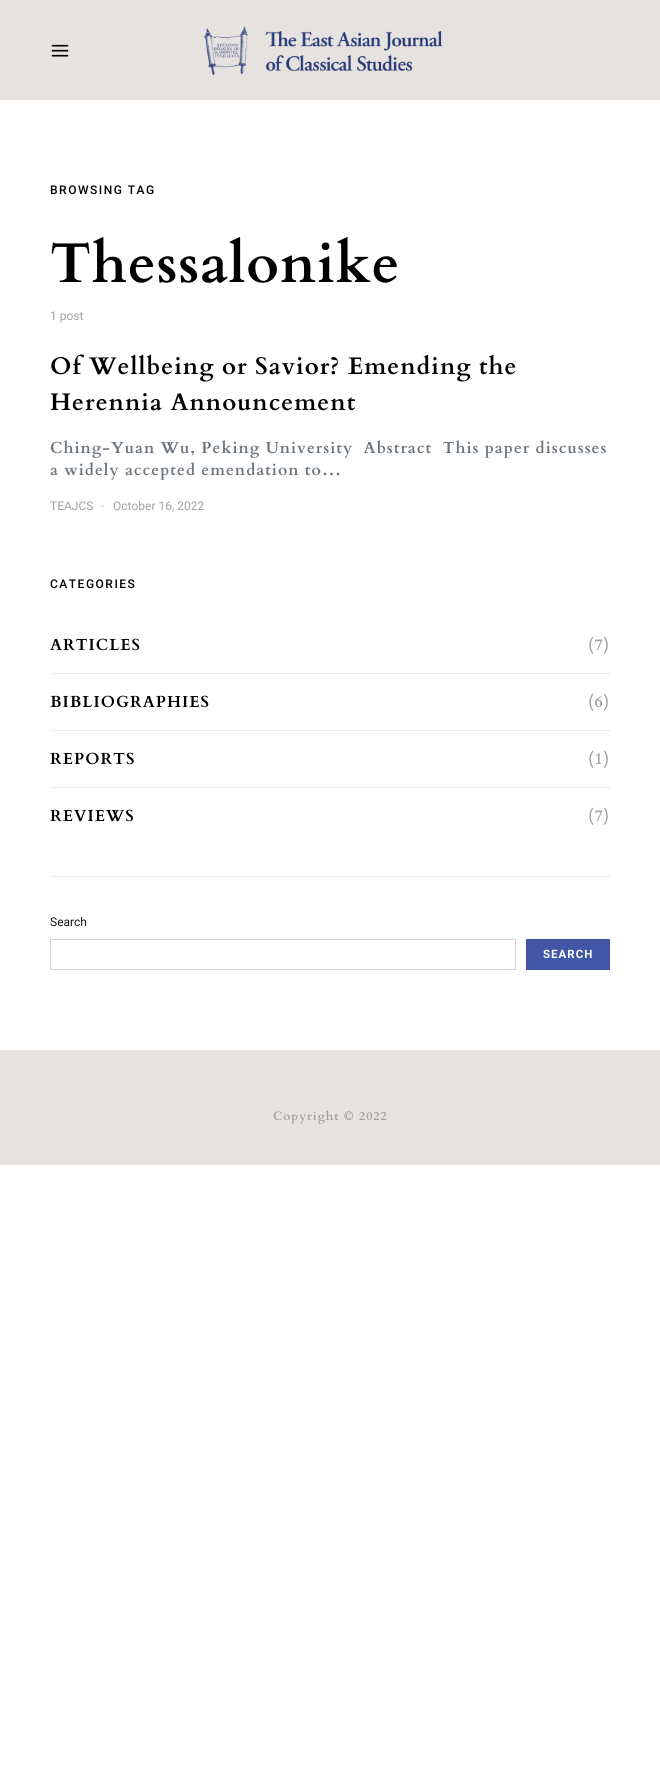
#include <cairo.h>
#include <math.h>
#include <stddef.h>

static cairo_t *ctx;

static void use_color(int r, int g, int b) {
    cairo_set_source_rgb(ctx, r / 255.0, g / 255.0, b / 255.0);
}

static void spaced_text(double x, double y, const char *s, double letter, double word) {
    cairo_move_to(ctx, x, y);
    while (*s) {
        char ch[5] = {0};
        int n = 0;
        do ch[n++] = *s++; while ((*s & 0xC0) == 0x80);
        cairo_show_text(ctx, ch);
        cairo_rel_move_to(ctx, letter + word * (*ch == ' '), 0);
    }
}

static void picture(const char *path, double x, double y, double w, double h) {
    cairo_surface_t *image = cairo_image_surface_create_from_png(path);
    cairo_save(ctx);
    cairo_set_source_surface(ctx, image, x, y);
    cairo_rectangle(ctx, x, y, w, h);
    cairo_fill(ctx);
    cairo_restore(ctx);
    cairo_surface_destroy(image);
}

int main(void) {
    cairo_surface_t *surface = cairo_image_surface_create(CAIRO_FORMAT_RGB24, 660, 1776);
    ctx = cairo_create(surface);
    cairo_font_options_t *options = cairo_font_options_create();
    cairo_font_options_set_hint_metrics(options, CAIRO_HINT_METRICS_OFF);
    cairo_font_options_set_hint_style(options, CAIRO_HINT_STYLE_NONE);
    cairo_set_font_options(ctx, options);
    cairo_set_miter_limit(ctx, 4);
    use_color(255, 255, 255);
    cairo_paint(ctx);
    use_color(230, 226, 223);
    cairo_rectangle(ctx, 0, 0, 660, 100);
    cairo_fill(ctx);
    picture("img1.png", 51, 44, 18, 13);
    picture("img2.png", 204, 26, 239, 49);
    cairo_select_font_face(ctx, "Roboto Medium", CAIRO_FONT_SLANT_NORMAL, CAIRO_FONT_WEIGHT_NORMAL);
    cairo_set_font_size(ctx, 12);
    use_color(0, 0, 0);
    spaced_text(50, 194, "BROWSING TAG", 1.5, 0);
    cairo_select_font_face(ctx, "Cardo", CAIRO_FONT_SLANT_NORMAL, CAIRO_FONT_WEIGHT_BOLD);
    cairo_set_font_size(ctx, 56);
    spaced_text(50, 282, "Thessalonike", 1, 0);
    cairo_select_font_face(ctx, "Roboto", CAIRO_FONT_SLANT_NORMAL, CAIRO_FONT_WEIGHT_NORMAL);
    cairo_set_font_size(ctx, 12);
    use_color(160, 160, 160);
    cairo_move_to(ctx, 50, 320);
    cairo_show_text(ctx, "1 post");
    cairo_select_font_face(ctx, "Cardo", CAIRO_FONT_SLANT_NORMAL, CAIRO_FONT_WEIGHT_BOLD);
    cairo_set_font_size(ctx, 24);
    use_color(0, 0, 0);
    spaced_text(50, 374, "Of Wellbeing or Savior? Emending the", 1, 0);
    spaced_text(50, 410, "Herennia Announcement", 1, 0);
    cairo_set_font_size(ctx, 16);
    use_color(108, 117, 125);
    spaced_text(50, 453, "Ching-Yuan Wu, Peking University  Abstract  This paper discusses", 1, 0);
    spaced_text(50, 475, "a widely accepted emendation to…", 1, 0);
    cairo_select_font_face(ctx, "Roboto", CAIRO_FONT_SLANT_NORMAL, CAIRO_FONT_WEIGHT_NORMAL);
    cairo_set_font_size(ctx, 12);
    use_color(160, 160, 160);
    cairo_move_to(ctx, 50, 510);
    cairo_show_text(ctx, "TEAJCS");
    cairo_move_to(ctx, 101, 510);
    cairo_show_text(ctx, "·");
    cairo_move_to(ctx, 113, 510);
    cairo_show_text(ctx, "October 16, 2022");
    use_color(233, 236, 239);
    cairo_rectangle(ctx, 50, 876, 560, 1);
    cairo_fill(ctx);
    cairo_select_font_face(ctx, "Roboto Medium", CAIRO_FONT_SLANT_NORMAL, CAIRO_FONT_WEIGHT_NORMAL);
    use_color(0, 0, 0);
    spaced_text(50, 588, "CATEGORIES", 1.5, 0);
    use_color(233, 236, 239);
    cairo_rectangle(ctx, 50, 673, 560, 1);
    cairo_fill(ctx);
    cairo_select_font_face(ctx, "Cardo", CAIRO_FONT_SLANT_NORMAL, CAIRO_FONT_WEIGHT_BOLD);
    cairo_set_font_size(ctx, 16);
    use_color(0, 0, 0);
    spaced_text(50, 650, "ARTICLES", 1, 0);
    use_color(160, 160, 160);
    spaced_text(588, 650, "(7)", 1, 0);
    use_color(233, 236, 239);
    cairo_rectangle(ctx, 50, 730, 560, 1);
    cairo_fill(ctx);
    use_color(0, 0, 0);
    spaced_text(50, 707, "BIBLIOGRAPHIES", 1, 0);
    use_color(160, 160, 160);
    spaced_text(588, 707, "(6)", 1, 0);
    use_color(233, 236, 239);
    cairo_rectangle(ctx, 50, 787, 560, 1);
    cairo_fill(ctx);
    use_color(0, 0, 0);
    spaced_text(50, 764, "REPORTS", 1, 0);
    use_color(160, 160, 160);
    spaced_text(588, 764, "(1)", 1, 0);
    use_color(0, 0, 0);
    spaced_text(50, 821, "REVIEWS", 1, 0);
    use_color(160, 160, 160);
    spaced_text(588, 821, "(7)", 1, 0);
    cairo_select_font_face(ctx, "Roboto", CAIRO_FONT_SLANT_NORMAL, CAIRO_FONT_WEIGHT_NORMAL);
    cairo_set_font_size(ctx, 12);
    use_color(18, 20, 22);
    cairo_move_to(ctx, 50, 926);
    cairo_show_text(ctx, "Search");
    cairo_rectangle(ctx, 50.5, 939.5, 465, 30);
    use_color(206, 212, 218);
    cairo_set_line_width(ctx, 1);
    cairo_stroke(ctx);
    use_color(65, 86, 164);
    cairo_rectangle(ctx, 526, 939, 84, 31);
    cairo_fill(ctx);
    cairo_select_font_face(ctx, "Roboto", CAIRO_FONT_SLANT_NORMAL, CAIRO_FONT_WEIGHT_BOLD);
    cairo_set_font_size(ctx, 11.5);
    use_color(255, 255, 255);
    spaced_text(543, 958, "SEARCH", 1, 0);
    use_color(230, 226, 223);
    cairo_rectangle(ctx, 0, 1051, 660, 114);
    cairo_fill(ctx);
    use_color(233, 236, 239);
    cairo_rectangle(ctx, 0, 1050, 660, 1);
    cairo_fill(ctx);
    cairo_select_font_face(ctx, "Cardo", CAIRO_FONT_SLANT_NORMAL, CAIRO_FONT_WEIGHT_BOLD);
    cairo_set_font_size(ctx, 12);
    use_color(160, 160, 160);
    spaced_text(273, 1120, "Copyright © 2022", 1, 0);
    cairo_surface_write_to_png(surface, "result.png");
    cairo_font_options_destroy(options);
    cairo_destroy(ctx);
    cairo_surface_destroy(surface);
    return 0;
}
